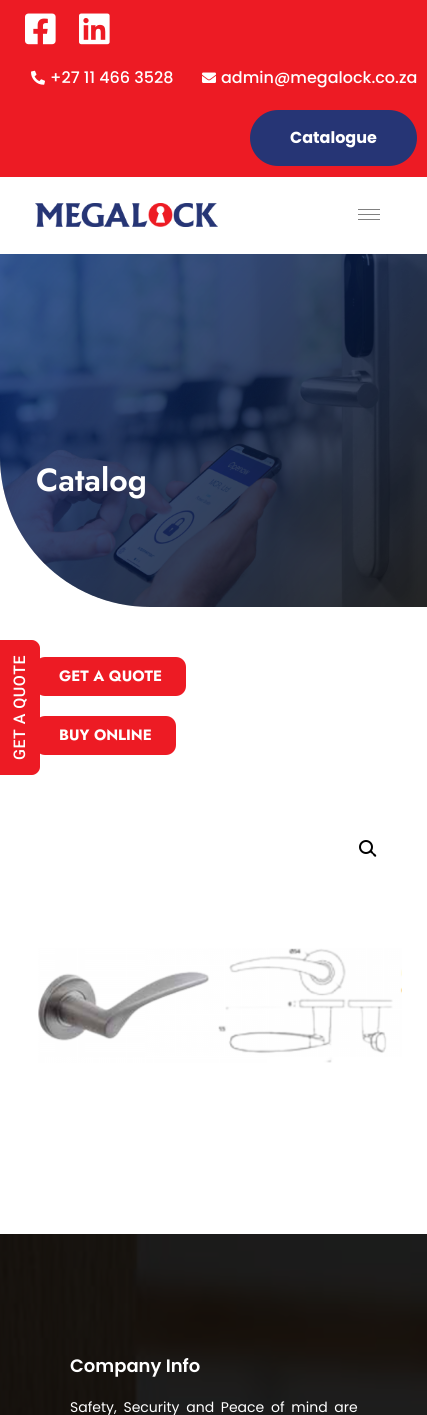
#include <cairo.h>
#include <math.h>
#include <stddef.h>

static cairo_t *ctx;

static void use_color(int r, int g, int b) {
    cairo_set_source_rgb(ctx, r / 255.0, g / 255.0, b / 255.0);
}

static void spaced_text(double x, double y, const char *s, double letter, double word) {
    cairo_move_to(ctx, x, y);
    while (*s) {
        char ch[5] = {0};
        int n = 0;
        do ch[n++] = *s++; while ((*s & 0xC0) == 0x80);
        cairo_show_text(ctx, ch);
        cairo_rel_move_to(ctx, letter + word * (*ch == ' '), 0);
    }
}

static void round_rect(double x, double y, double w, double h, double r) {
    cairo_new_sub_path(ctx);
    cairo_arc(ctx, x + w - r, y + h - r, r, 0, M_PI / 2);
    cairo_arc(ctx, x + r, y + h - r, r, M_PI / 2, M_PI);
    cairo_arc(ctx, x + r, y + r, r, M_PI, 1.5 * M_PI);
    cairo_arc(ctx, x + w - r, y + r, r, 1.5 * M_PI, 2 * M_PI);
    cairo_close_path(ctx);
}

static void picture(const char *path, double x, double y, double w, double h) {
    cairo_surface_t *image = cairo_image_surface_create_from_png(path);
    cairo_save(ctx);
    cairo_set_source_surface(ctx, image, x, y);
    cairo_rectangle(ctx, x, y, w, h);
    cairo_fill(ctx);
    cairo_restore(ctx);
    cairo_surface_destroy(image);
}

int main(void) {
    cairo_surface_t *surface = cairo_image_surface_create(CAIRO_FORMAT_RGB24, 427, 1415);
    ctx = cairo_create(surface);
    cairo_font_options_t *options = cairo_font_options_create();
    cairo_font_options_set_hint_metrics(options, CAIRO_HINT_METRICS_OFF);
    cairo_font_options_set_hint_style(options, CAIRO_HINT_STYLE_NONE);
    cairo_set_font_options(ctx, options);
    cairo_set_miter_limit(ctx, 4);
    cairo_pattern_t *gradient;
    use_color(255, 255, 255);
    cairo_paint(ctx);
    use_color(237, 27, 36);
    cairo_rectangle(ctx, 0, 0, 427, 177);
    cairo_fill(ctx);
    picture("img1.png", 25, 13, 31, 32);
    picture("img2.png", 79, 13, 31, 32);
    picture("img3.png", 31, 70, 14, 15);
    cairo_select_font_face(ctx, "Poppins Medium", CAIRO_FONT_SLANT_NORMAL, CAIRO_FONT_WEIGHT_NORMAL);
    cairo_set_font_size(ctx, 16);
    use_color(255, 255, 255);
    cairo_move_to(ctx, 50, 83);
    cairo_show_text(ctx, "+27 11 466 3528");
    picture("img4.png", 202, 72, 14, 11);
    cairo_move_to(ctx, 221, 83);
    cairo_show_text(ctx, "admin@megalock.co.za");
    use_color(38, 53, 117);
    round_rect(250, 110, 167, 56, 28);
    cairo_fill(ctx);
    cairo_select_font_face(ctx, "Poppins", CAIRO_FONT_SLANT_NORMAL, CAIRO_FONT_WEIGHT_BOLD);
    use_color(255, 255, 255);
    cairo_move_to(ctx, 290, 143);
    cairo_show_text(ctx, "Catalogue");
    picture("img5.png", 35, 203, 183, 24);
    use_color(128, 128, 128);
    cairo_rectangle(ctx, 358, 209, 22, 1);
    cairo_fill(ctx);
    cairo_rectangle(ctx, 358, 214, 22, 1);
    cairo_fill(ctx);
    cairo_rectangle(ctx, 358, 219, 22, 1);
    cairo_fill(ctx);
    use_color(237, 27, 36);
    round_rect(35, 657, 151, 39, 10);
    cairo_fill(ctx);
    round_rect(35, 716, 141, 39, 10);
    cairo_fill(ctx);
    cairo_new_path(ctx);
    cairo_move_to(ctx, 0, 775);
    cairo_line_to(ctx, 0, 640);
    cairo_line_to(ctx, 32, 640);
    cairo_curve_to(ctx, 36, 640, 40, 644, 40, 648);
    cairo_line_to(ctx, 40, 767);
    cairo_curve_to(ctx, 40, 771, 36, 775, 32, 775);
    cairo_close_path(ctx);
    cairo_fill(ctx);
    cairo_select_font_face(ctx, "Roboto Medium", CAIRO_FONT_SLANT_NORMAL, CAIRO_FONT_WEIGHT_NORMAL);
    use_color(255, 255, 255);
    cairo_save(ctx);
    cairo_translate(ctx, 25, 760);
    cairo_rotate(ctx, -90 * M_PI / 180);
    spaced_text(0, 0, "GET A QUOTE", 0.5, 0);
    cairo_restore(ctx);
    picture("img6.png", 0, 254, 427, 353);
    gradient = cairo_pattern_create_linear(1.3, 252, 426, 609);
    cairo_pattern_add_color_stop_rgba(gradient, 0, 0.039, 0.2, 0.529, 0.8);
    cairo_pattern_add_color_stop_rgba(gradient, 1, 0, 0, 0, 0.8);
    cairo_set_source(ctx, gradient);
    cairo_pattern_destroy(gradient);
    cairo_new_path(ctx);
    cairo_move_to(ctx, 0, 254);
    cairo_line_to(ctx, 427, 254);
    cairo_line_to(ctx, 427, 607);
    cairo_line_to(ctx, 150, 607);
    cairo_curve_to(ctx, 67, 607, 0, 540, 0, 457);
    cairo_close_path(ctx);
    cairo_fill(ctx);
    cairo_select_font_face(ctx, "Jost SemiBold", CAIRO_FONT_SLANT_NORMAL, CAIRO_FONT_WEIGHT_NORMAL);
    cairo_set_font_size(ctx, 32);
    use_color(255, 255, 255);
    cairo_move_to(ctx, 36, 491);
    cairo_show_text(ctx, "Catalog");
    cairo_select_font_face(ctx, "Jost", CAIRO_FONT_SLANT_NORMAL, CAIRO_FONT_WEIGHT_BOLD);
    cairo_set_font_size(ctx, 15);
    cairo_move_to(ctx, 59, 681);
    cairo_show_text(ctx, "GET A QUOTE");
    cairo_move_to(ctx, 59, 740);
    cairo_show_text(ctx, "BUY ONLINE");
    cairo_new_path(ctx);
    cairo_arc(ctx, 366, 847, 6, 0, 2 * M_PI);
    use_color(0, 0, 0);
    cairo_stroke(ctx);
    cairo_new_path(ctx);
    cairo_move_to(ctx, 370, 850.5);
    cairo_curve_to(ctx, 371.5, 849.5, 373, 852, 373.5, 853);
    cairo_curve_to(ctx, 374.5, 853.5, 377, 855, 376, 856.5);
    cairo_curve_to(ctx, 374.5, 857.5, 373, 855, 372.5, 854);
    cairo_curve_to(ctx, 371.5, 853.5, 369, 852, 370, 850.5);
    cairo_close_path(ctx);
    cairo_fill(ctx);
    picture("img7.png", 38, 948, 364, 115);
    picture("img8.png", 0, 1234, 427, 181);
    cairo_select_font_face(ctx, "Poppins SemiBold", CAIRO_FONT_SLANT_NORMAL, CAIRO_FONT_WEIGHT_NORMAL);
    cairo_set_font_size(ctx, 18);
    use_color(255, 255, 255);
    cairo_move_to(ctx, 70, 1372);
    cairo_show_text(ctx, "Company Info");
    cairo_select_font_face(ctx, "Poppins", CAIRO_FONT_SLANT_NORMAL, CAIRO_FONT_WEIGHT_NORMAL);
    cairo_set_font_size(ctx, 14);
    spaced_text(70, 1412, "Safety, Security and Peace of mind are", 0, 3);
    cairo_surface_write_to_png(surface, "result.png");
    cairo_font_options_destroy(options);
    cairo_destroy(ctx);
    cairo_surface_destroy(surface);
    return 0;
}
